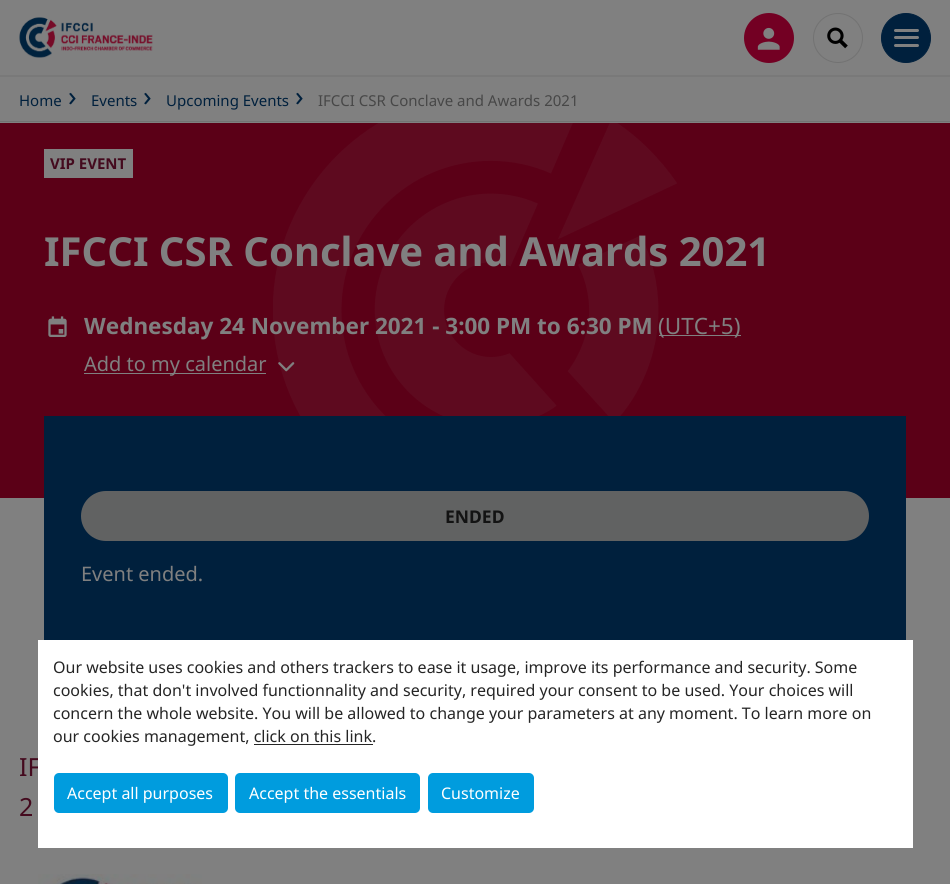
#include <cairo.h>
#include <math.h>
#include <stddef.h>

static cairo_t *ctx;

static void use_color(int r, int g, int b) {
    cairo_set_source_rgb(ctx, r / 255.0, g / 255.0, b / 255.0);
}

static void round_rect(double x, double y, double w, double h, double r) {
    cairo_new_sub_path(ctx);
    cairo_arc(ctx, x + w - r, y + h - r, r, 0, M_PI / 2);
    cairo_arc(ctx, x + r, y + h - r, r, M_PI / 2, M_PI);
    cairo_arc(ctx, x + r, y + r, r, M_PI, 1.5 * M_PI);
    cairo_arc(ctx, x + w - r, y + r, r, 1.5 * M_PI, 2 * M_PI);
    cairo_close_path(ctx);
}

static void picture(const char *path, double x, double y, double w, double h) {
    cairo_surface_t *image = cairo_image_surface_create_from_png(path);
    cairo_save(ctx);
    cairo_set_source_surface(ctx, image, x, y);
    cairo_rectangle(ctx, x, y, w, h);
    cairo_fill(ctx);
    cairo_restore(ctx);
    cairo_surface_destroy(image);
}

int main(void) {
    cairo_surface_t *surface = cairo_image_surface_create(CAIRO_FORMAT_RGB24, 950, 884);
    ctx = cairo_create(surface);
    cairo_font_options_t *options = cairo_font_options_create();
    cairo_font_options_set_hint_metrics(options, CAIRO_HINT_METRICS_OFF);
    cairo_font_options_set_hint_style(options, CAIRO_HINT_STYLE_NONE);
    cairo_set_font_options(ctx, options);
    cairo_set_miter_limit(ctx, 4);
    use_color(128, 128, 128);
    cairo_paint(ctx);
    use_color(121, 121, 121);
    cairo_rectangle(ctx, 0, 75, 950, 2);
    cairo_fill(ctx);
    picture("img1.png", 19, 17, 134, 41);
    use_color(115, 0, 35);
    cairo_arc(ctx, 769, 38, 25, 0, 2 * M_PI);
    cairo_fill(ctx);
    picture("img2.png", 757, 27, 23, 23);
    cairo_arc(ctx, 838, 38, 24.5, 0, 2 * M_PI);
    use_color(114, 114, 114);
    cairo_set_line_width(ctx, 1);
    cairo_stroke(ctx);
    picture("img3.png", 827, 27, 21, 22);
    use_color(0, 32, 61);
    cairo_arc(ctx, 906, 38, 24.5, 0, 2 * M_PI);
    cairo_fill_preserve(ctx);
    cairo_stroke(ctx);
    use_color(128, 128, 128);
    round_rect(894, 29, 25, 3, 1.5);
    cairo_fill(ctx);
    round_rect(894, 36, 25, 3, 1.5);
    cairo_fill(ctx);
    round_rect(894, 44, 25, 3, 1.5);
    cairo_fill(ctx);
    use_color(114, 114, 114);
    cairo_rectangle(ctx, 0, 121, 950, 1);
    cairo_fill(ctx);
    cairo_select_font_face(ctx, "Noto Sans", CAIRO_FONT_SLANT_NORMAL, CAIRO_FONT_WEIGHT_NORMAL);
    cairo_set_font_size(ctx, 15);
    use_color(0, 32, 61);
    cairo_move_to(ctx, 19, 106);
    cairo_show_text(ctx, "Home");
    cairo_set_font_size(ctx, 28);
    cairo_move_to(ctx, 68, 106);
    cairo_show_text(ctx, "›");
    cairo_set_font_size(ctx, 15);
    cairo_move_to(ctx, 91, 106);
    cairo_show_text(ctx, "Events");
    cairo_set_font_size(ctx, 28);
    cairo_move_to(ctx, 143, 106);
    cairo_show_text(ctx, "›");
    cairo_set_font_size(ctx, 15);
    cairo_move_to(ctx, 166, 106);
    cairo_show_text(ctx, "Upcoming Events");
    cairo_set_font_size(ctx, 28);
    cairo_move_to(ctx, 295, 106);
    cairo_show_text(ctx, "›");
    cairo_set_font_size(ctx, 15);
    use_color(71, 71, 71);
    cairo_move_to(ctx, 318, 106);
    cairo_show_text(ctx, "IFCCI CSR Conclave and Awards 2021");
    use_color(91, 0, 23);
    cairo_rectangle(ctx, 0, 123, 950, 375);
    cairo_fill(ctx);
    use_color(128, 128, 128);
    cairo_rectangle(ctx, 44, 149, 89, 29);
    cairo_fill(ctx);
    cairo_select_font_face(ctx, "Noto Sans", CAIRO_FONT_SLANT_NORMAL, CAIRO_FONT_WEIGHT_BOLD);
    use_color(68, 10, 30);
    cairo_move_to(ctx, 50, 169);
    cairo_show_text(ctx, "VIP EVENT");
    picture("img4.png", 273, 123, 404, 293);
    cairo_set_font_size(ctx, 40);
    use_color(128, 128, 128);
    cairo_move_to(ctx, 44, 266);
    cairo_show_text(ctx, "IFCCI CSR Conclave and Awards 2021");
    picture("img5.png", 48, 316, 19, 21);
    cairo_set_font_size(ctx, 22.5);
    cairo_move_to(ctx, 84, 334);
    cairo_show_text(ctx, "Wednesday 24 November 2021 - 3:00 PM to 6:30 PM");
    cairo_rectangle(ctx, 659, 335, 82, 1);
    cairo_fill(ctx);
    cairo_select_font_face(ctx, "Noto Sans", CAIRO_FONT_SLANT_NORMAL, CAIRO_FONT_WEIGHT_NORMAL);
    cairo_move_to(ctx, 658, 334);
    cairo_show_text(ctx, "(UTC+5)");
    cairo_rectangle(ctx, 84, 373, 182, 1);
    cairo_fill(ctx);
    cairo_set_font_size(ctx, 20);
    cairo_move_to(ctx, 84, 371);
    cairo_show_text(ctx, "Add to my calendar");
    picture("img6.png", 278, 362, 17, 10);
    use_color(0, 32, 61);
    cairo_rectangle(ctx, 44, 416, 862, 224);
    cairo_fill(ctx);
    use_color(97, 98, 98);
    round_rect(81, 491, 788, 50, 25);
    cairo_fill(ctx);
    cairo_select_font_face(ctx, "Noto Sans", CAIRO_FONT_SLANT_NORMAL, CAIRO_FONT_WEIGHT_BOLD);
    cairo_set_font_size(ctx, 17.5);
    use_color(19, 19, 19);
    cairo_move_to(ctx, 445, 523);
    cairo_show_text(ctx, "ENDED");
    cairo_select_font_face(ctx, "Noto Sans", CAIRO_FONT_SLANT_NORMAL, CAIRO_FONT_WEIGHT_NORMAL);
    cairo_set_font_size(ctx, 20);
    use_color(128, 128, 128);
    cairo_move_to(ctx, 81, 581);
    cairo_show_text(ctx, "Event ended.");
    cairo_set_font_size(ctx, 25);
    use_color(68, 10, 30);
    cairo_move_to(ctx, 19, 776);
    cairo_show_text(ctx, "IF");
    cairo_move_to(ctx, 19, 816);
    cairo_show_text(ctx, "2");
    picture("img7.png", 38, 874, 164, 10);
    use_color(255, 255, 255);
    cairo_rectangle(ctx, 38, 640, 875, 208);
    cairo_fill(ctx);
    cairo_set_font_size(ctx, 16);
    use_color(37, 37, 37);
    cairo_move_to(ctx, 53, 673);
    cairo_show_text(ctx, "Our website uses cookies and others trackers to ease it usage, improve its performance and security. Some");
    cairo_move_to(ctx, 53, 696);
    cairo_show_text(ctx, "cookies, that don't involved functionnality and security, required your consent to be used. Your choices will");
    cairo_move_to(ctx, 53, 719);
    cairo_show_text(ctx, "concern the whole website. You will be allowed to change your parameters at any moment. To learn more on");
    cairo_move_to(ctx, 53, 742);
    cairo_show_text(ctx, "our cookies management, click on this link.");
    cairo_rectangle(ctx, 254, 744, 119, 1);
    cairo_fill(ctx);
    use_color(0, 156, 222);
    round_rect(54, 773, 174, 40, 5);
    cairo_fill(ctx);
    use_color(255, 255, 255);
    cairo_move_to(ctx, 67, 799);
    cairo_show_text(ctx, "Accept all purposes");
    use_color(0, 156, 222);
    round_rect(235, 773, 185, 40, 5);
    cairo_fill(ctx);
    use_color(255, 255, 255);
    cairo_move_to(ctx, 249, 799);
    cairo_show_text(ctx, "Accept the essentials");
    use_color(0, 156, 222);
    round_rect(428, 773, 106, 40, 5);
    cairo_fill(ctx);
    use_color(255, 255, 255);
    cairo_move_to(ctx, 441, 799);
    cairo_show_text(ctx, "Customize");
    cairo_surface_write_to_png(surface, "result.png");
    cairo_font_options_destroy(options);
    cairo_destroy(ctx);
    cairo_surface_destroy(surface);
    return 0;
}
